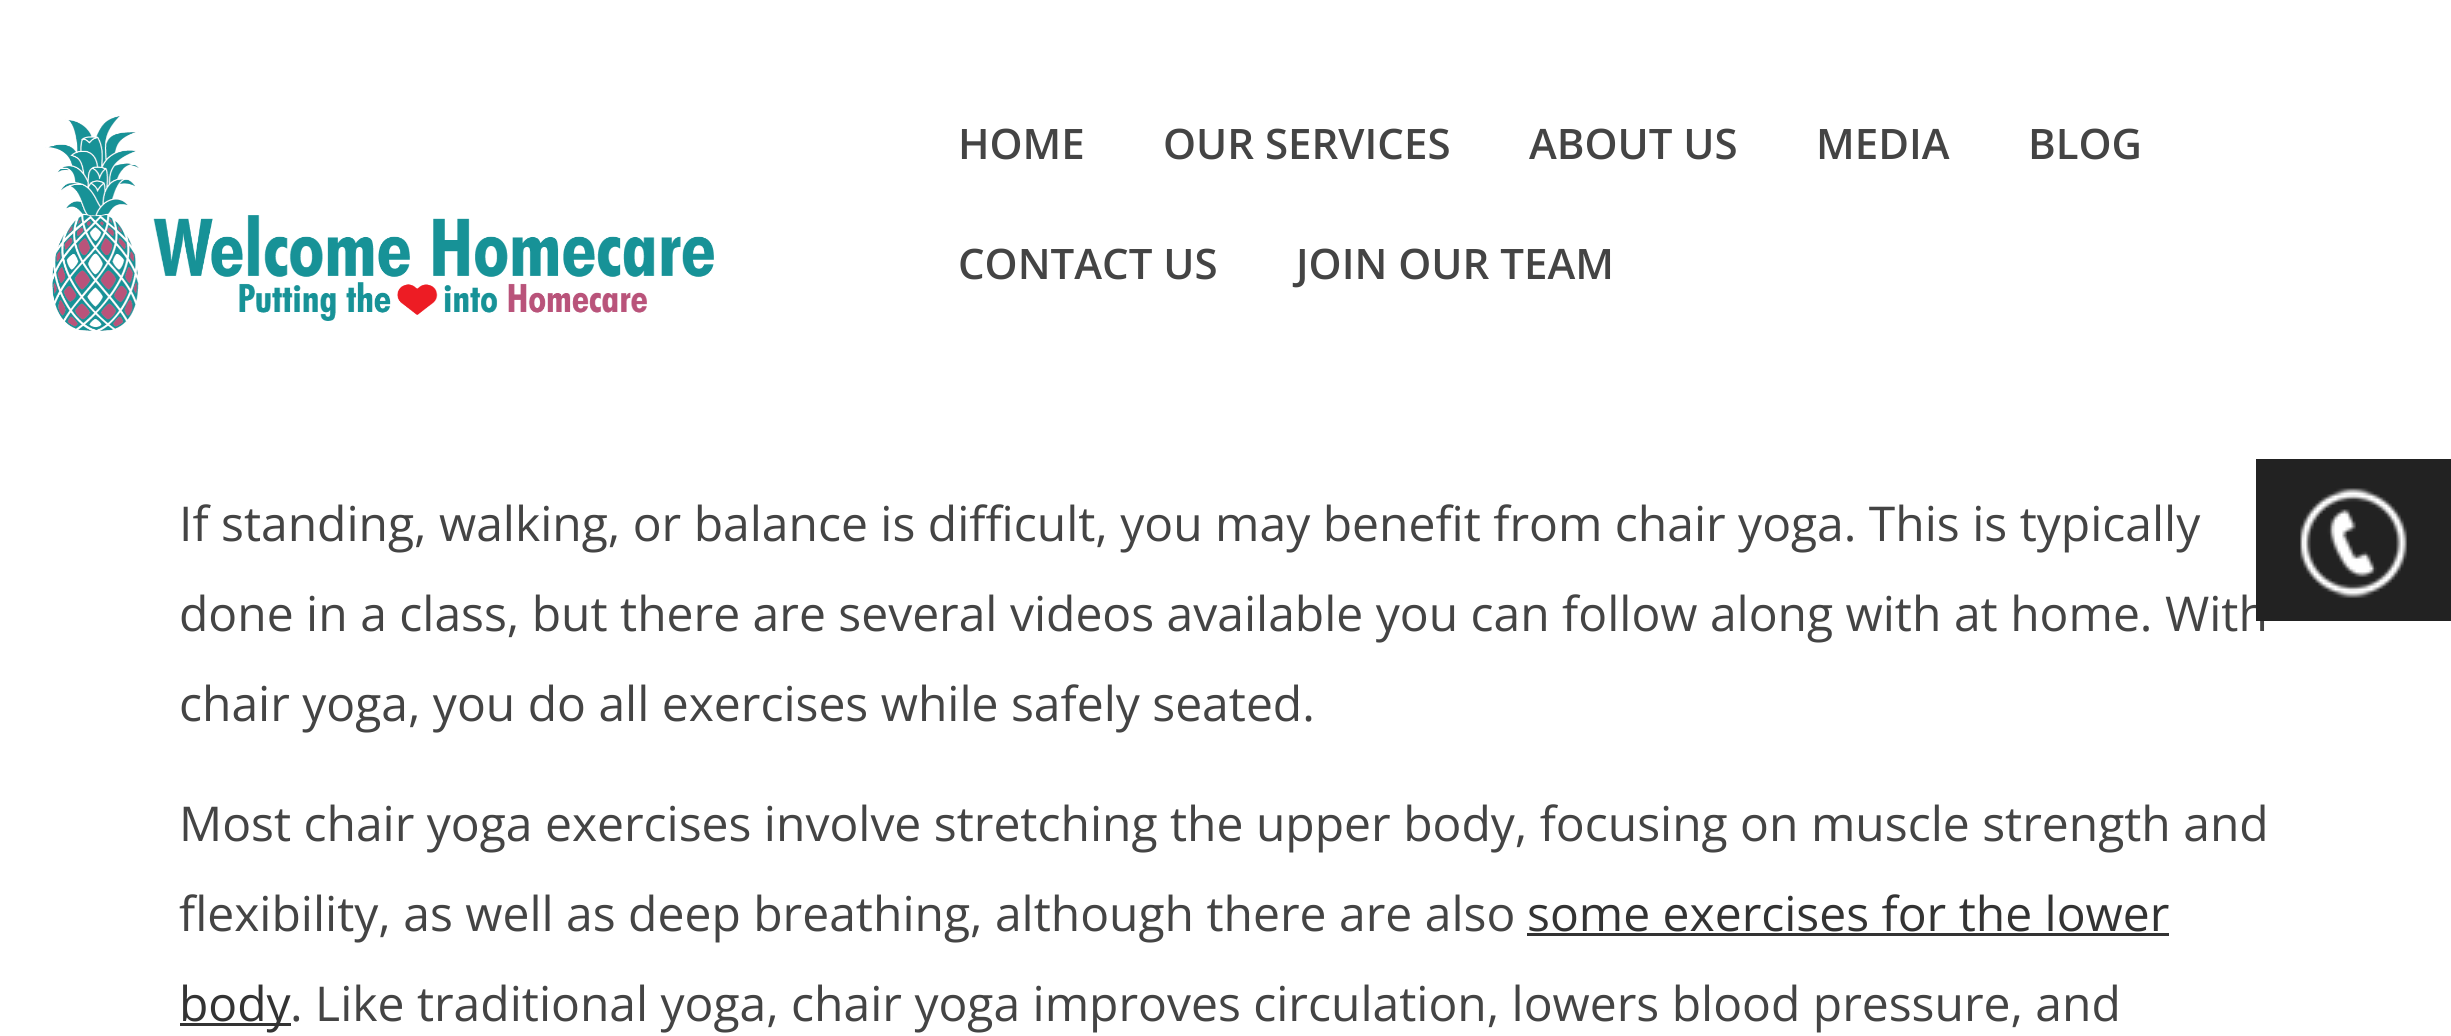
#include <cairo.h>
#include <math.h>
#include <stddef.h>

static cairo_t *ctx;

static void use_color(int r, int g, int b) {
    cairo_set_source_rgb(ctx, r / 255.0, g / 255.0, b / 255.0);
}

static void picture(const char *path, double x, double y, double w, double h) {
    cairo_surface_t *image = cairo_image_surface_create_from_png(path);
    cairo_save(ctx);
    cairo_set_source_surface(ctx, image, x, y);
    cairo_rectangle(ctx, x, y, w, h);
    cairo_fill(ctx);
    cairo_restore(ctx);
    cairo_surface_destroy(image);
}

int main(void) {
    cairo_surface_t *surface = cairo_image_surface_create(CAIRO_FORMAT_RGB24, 2451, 1036);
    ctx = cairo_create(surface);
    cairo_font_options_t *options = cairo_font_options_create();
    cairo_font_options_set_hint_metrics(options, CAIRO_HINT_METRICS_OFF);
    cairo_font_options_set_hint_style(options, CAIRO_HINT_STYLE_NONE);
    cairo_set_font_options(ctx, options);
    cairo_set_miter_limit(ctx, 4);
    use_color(255, 255, 255);
    cairo_paint(ctx);
    picture("img1.png", 45, 116, 669, 215);
    cairo_select_font_face(ctx, "Open Sans SemiBold", CAIRO_FONT_SLANT_NORMAL, CAIRO_FONT_WEIGHT_NORMAL);
    cairo_set_font_size(ctx, 42);
    use_color(68, 68, 68);
    cairo_move_to(ctx, 958, 159);
    cairo_show_text(ctx, "HOME");
    cairo_move_to(ctx, 1163, 159);
    cairo_show_text(ctx, "OUR SERVICES");
    cairo_move_to(ctx, 1529, 159);
    cairo_show_text(ctx, "ABOUT US");
    cairo_move_to(ctx, 1816, 159);
    cairo_show_text(ctx, "MEDIA");
    cairo_move_to(ctx, 2028, 159);
    cairo_show_text(ctx, "BLOG");
    cairo_move_to(ctx, 958, 279);
    cairo_show_text(ctx, "CONTACT US");
    cairo_move_to(ctx, 1296, 279);
    cairo_show_text(ctx, "JOIN OUR TEAM");
    cairo_select_font_face(ctx, "Open Sans", CAIRO_FONT_SLANT_NORMAL, CAIRO_FONT_WEIGHT_NORMAL);
    cairo_set_font_size(ctx, 48);
    cairo_move_to(ctx, 179, 631);
    cairo_show_text(ctx, "done in a class, but there are several videos available you can follow along with at home. With");
    use_color(34, 34, 34);
    cairo_rectangle(ctx, 2256, 459, 195, 162);
    cairo_fill(ctx);
    picture("img2.png", 2300, 488, 107, 110);
    use_color(68, 68, 68);
    cairo_move_to(ctx, 179, 541);
    cairo_show_text(ctx, "If standing, walking, or balance is difficult, you may benefit from chair yoga. This is typically");
    cairo_move_to(ctx, 179, 721);
    cairo_show_text(ctx, "chair yoga, you do all exercises while safely seated.");
    cairo_move_to(ctx, 179, 841);
    cairo_show_text(ctx, "Most chair yoga exercises involve stretching the upper body, focusing on muscle strength and");
    cairo_move_to(ctx, 179, 931);
    cairo_show_text(ctx, "flexibility, as well as deep breathing, although there are also");
    use_color(51, 51, 51);
    cairo_move_to(ctx, 1527, 931);
    cairo_show_text(ctx, "some exercises for the lower");
    cairo_rectangle(ctx, 1527, 933, 642, 3);
    cairo_fill(ctx);
    cairo_rectangle(ctx, 180, 1023, 111, 3);
    cairo_fill(ctx);
    cairo_move_to(ctx, 179, 1021);
    cairo_show_text(ctx, "body");
    use_color(68, 68, 68);
    cairo_move_to(ctx, 290, 1021);
    cairo_show_text(ctx, ". Like traditional yoga, chair yoga improves circulation, lowers blood pressure, and");
    cairo_surface_write_to_png(surface, "result.png");
    cairo_font_options_destroy(options);
    cairo_destroy(ctx);
    cairo_surface_destroy(surface);
    return 0;
}
